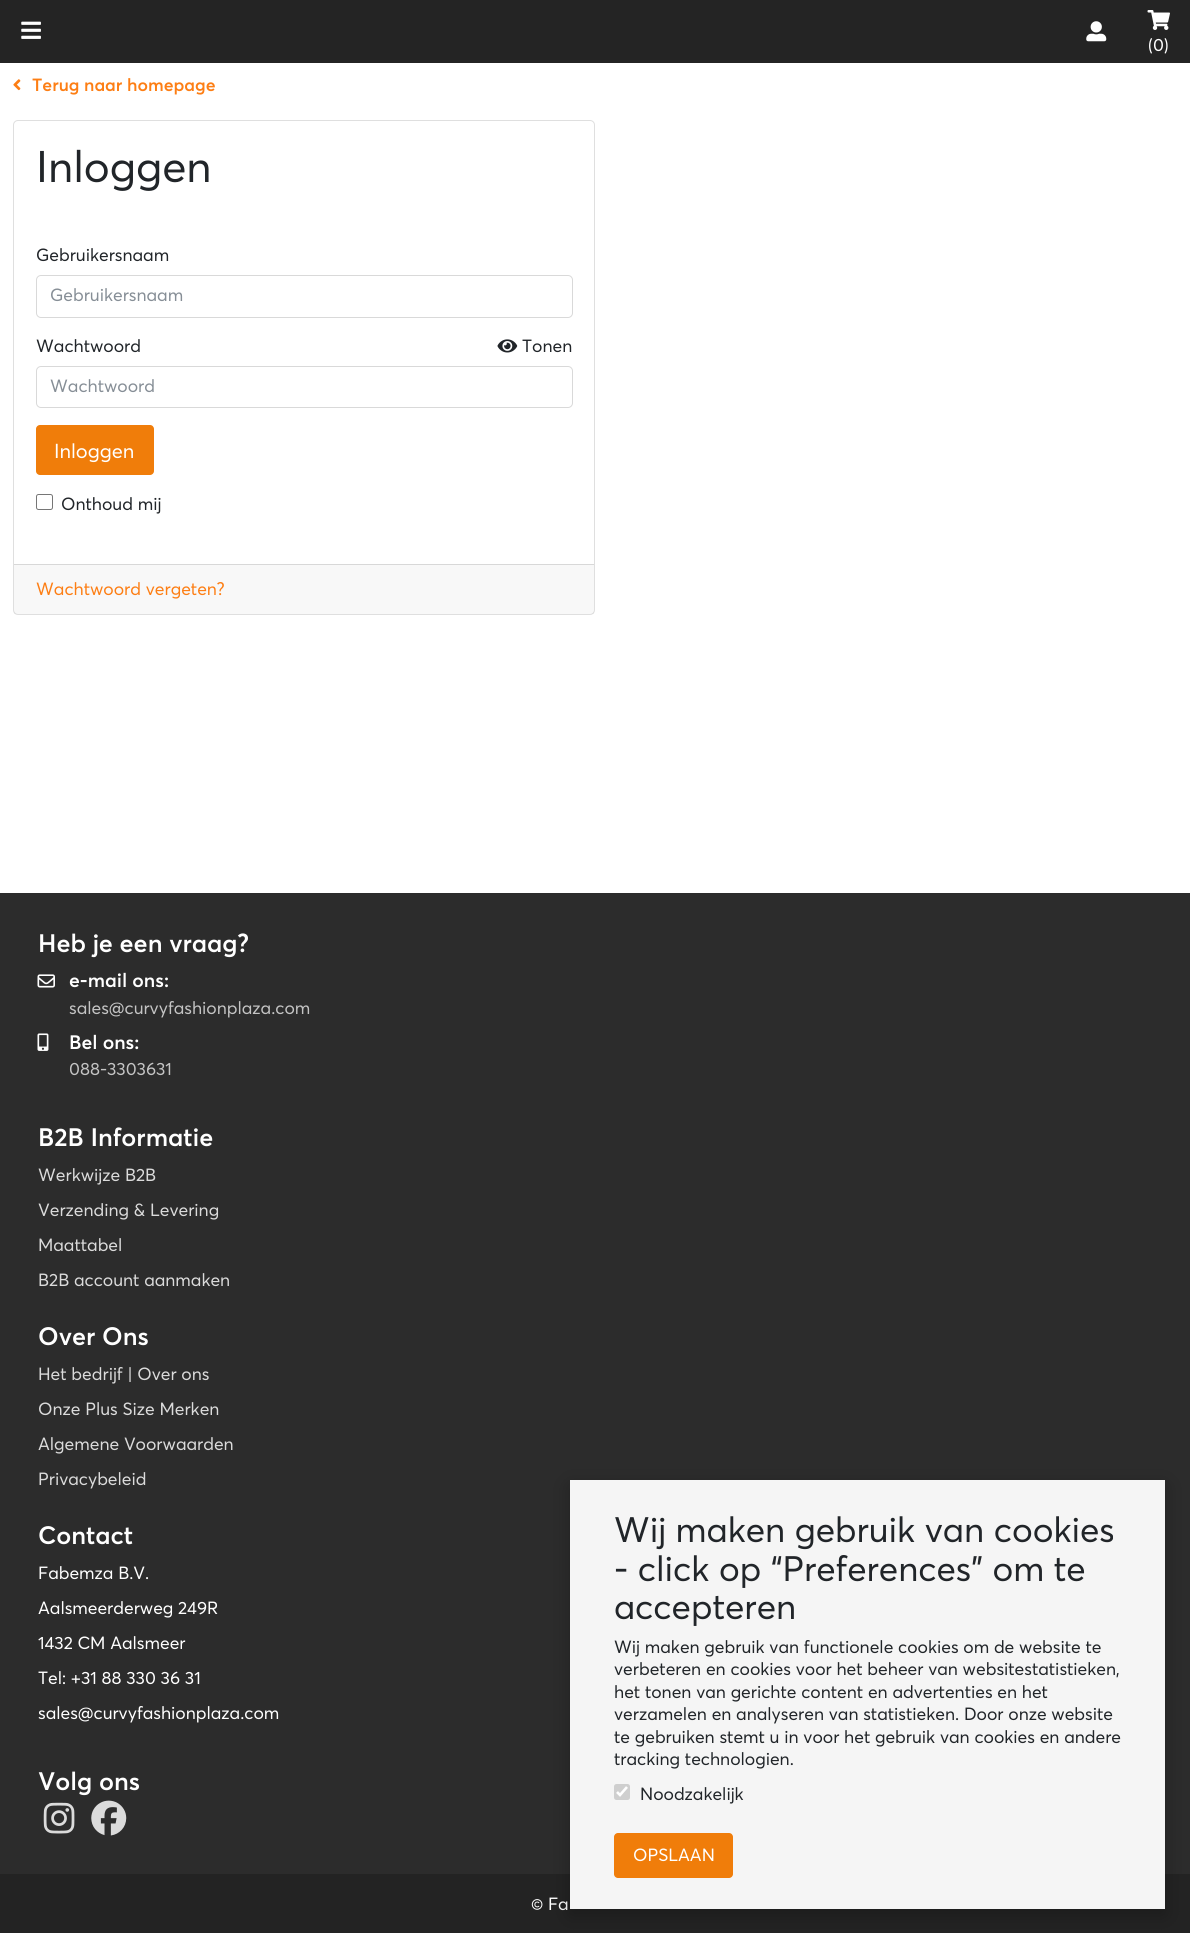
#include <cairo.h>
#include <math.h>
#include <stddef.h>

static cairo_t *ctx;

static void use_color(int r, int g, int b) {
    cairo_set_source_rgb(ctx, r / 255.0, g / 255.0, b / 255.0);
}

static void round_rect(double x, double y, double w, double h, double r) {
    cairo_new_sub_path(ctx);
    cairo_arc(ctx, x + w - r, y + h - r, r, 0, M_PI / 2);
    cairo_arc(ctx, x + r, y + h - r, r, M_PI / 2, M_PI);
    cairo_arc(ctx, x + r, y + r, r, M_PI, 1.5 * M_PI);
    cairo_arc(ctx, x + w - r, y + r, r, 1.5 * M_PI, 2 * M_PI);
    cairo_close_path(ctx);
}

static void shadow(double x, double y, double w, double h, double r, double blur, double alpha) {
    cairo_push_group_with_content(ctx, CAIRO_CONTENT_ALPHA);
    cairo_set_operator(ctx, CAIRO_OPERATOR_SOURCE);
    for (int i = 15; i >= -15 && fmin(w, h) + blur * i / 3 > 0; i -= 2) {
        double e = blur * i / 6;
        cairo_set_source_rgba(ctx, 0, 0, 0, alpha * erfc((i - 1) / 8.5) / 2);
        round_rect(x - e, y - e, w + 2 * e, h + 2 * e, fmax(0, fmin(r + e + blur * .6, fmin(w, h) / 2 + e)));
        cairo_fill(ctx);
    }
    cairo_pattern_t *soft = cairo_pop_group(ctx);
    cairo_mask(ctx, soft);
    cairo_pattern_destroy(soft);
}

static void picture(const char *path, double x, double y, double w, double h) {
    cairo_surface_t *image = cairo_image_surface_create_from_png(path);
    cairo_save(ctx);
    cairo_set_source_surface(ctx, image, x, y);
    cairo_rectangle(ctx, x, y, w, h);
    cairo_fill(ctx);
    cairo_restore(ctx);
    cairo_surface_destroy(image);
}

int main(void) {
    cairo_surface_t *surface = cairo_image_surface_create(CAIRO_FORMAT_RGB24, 1190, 1933);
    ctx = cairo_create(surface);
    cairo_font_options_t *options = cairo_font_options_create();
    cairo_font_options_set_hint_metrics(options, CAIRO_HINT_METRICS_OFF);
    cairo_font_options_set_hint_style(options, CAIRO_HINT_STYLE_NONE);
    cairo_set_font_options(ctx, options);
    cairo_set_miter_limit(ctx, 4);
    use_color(255, 255, 255);
    cairo_paint(ctx);
    use_color(36, 36, 36);
    cairo_rectangle(ctx, 0, 0, 1190, 63);
    cairo_fill(ctx);
    picture("img1.png", 21, 21, 20, 18);
    picture("img2.png", 1086, 21, 21, 21);
    picture("img3.png", 1147, 10, 23, 20);
    cairo_select_font_face(ctx, "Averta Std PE", CAIRO_FONT_SLANT_NORMAL, CAIRO_FONT_WEIGHT_NORMAL);
    cairo_set_font_size(ctx, 17.5);
    use_color(255, 255, 255);
    cairo_move_to(ctx, 1148, 51);
    cairo_show_text(ctx, "(0)");
    picture("img4.png", 13, 79, 8, 12);
    cairo_select_font_face(ctx, "Averta Std PE SemiBold", CAIRO_FONT_SLANT_NORMAL, CAIRO_FONT_WEIGHT_NORMAL);
    use_color(253, 126, 20);
    cairo_move_to(ctx, 32, 91);
    cairo_show_text(ctx, "Terug naar homepage");
    round_rect(13.5, 120.5, 581, 494, 4.5);
    use_color(223, 223, 223);
    cairo_set_line_width(ctx, 1);
    cairo_stroke(ctx);
    cairo_select_font_face(ctx, "Averta Std PE", CAIRO_FONT_SLANT_NORMAL, CAIRO_FONT_WEIGHT_NORMAL);
    cairo_set_font_size(ctx, 43.75);
    use_color(33, 37, 41);
    cairo_move_to(ctx, 36, 182);
    cairo_show_text(ctx, "Inloggen");
    cairo_set_font_size(ctx, 17.5);
    cairo_move_to(ctx, 36, 261);
    cairo_show_text(ctx, "Gebruikersnaam");
    round_rect(36.5, 275.5, 536, 42, 4.5);
    use_color(217, 217, 217);
    cairo_stroke(ctx);
    use_color(134, 142, 150);
    cairo_move_to(ctx, 50, 301);
    cairo_show_text(ctx, "Gebruikersnaam");
    use_color(33, 37, 41);
    cairo_move_to(ctx, 36, 352);
    cairo_show_text(ctx, "Wachtwoord");
    picture("img5.png", 497, 339, 21, 14);
    cairo_move_to(ctx, 522, 352);
    cairo_show_text(ctx, "Tonen");
    round_rect(36.5, 366.5, 536, 41, 4.5);
    use_color(217, 217, 217);
    cairo_stroke(ctx);
    use_color(134, 142, 150);
    cairo_move_to(ctx, 50, 392);
    cairo_show_text(ctx, "Wachtwoord");
    use_color(240, 125, 10);
    round_rect(36, 425, 118, 50, 4);
    cairo_fill(ctx);
    cairo_set_font_size(ctx, 20);
    use_color(255, 255, 255);
    cairo_move_to(ctx, 54, 458);
    cairo_show_text(ctx, "Inloggen");
    round_rect(36.5, 494.5, 16, 15, 2);
    use_color(118, 118, 118);
    cairo_stroke(ctx);
    cairo_set_font_size(ctx, 17.5);
    use_color(33, 37, 41);
    cairo_move_to(ctx, 61, 510);
    cairo_show_text(ctx, "Onthoud mij");
    cairo_set_source_rgba(ctx, 0, 0, 0, 0.03);
    cairo_rectangle(ctx, 14, 565, 580, 49);
    cairo_fill(ctx);
    use_color(216, 216, 216);
    cairo_rectangle(ctx, 14, 564, 580, 1);
    cairo_fill(ctx);
    use_color(253, 126, 20);
    cairo_move_to(ctx, 36, 595);
    cairo_show_text(ctx, "Wachtwoord vergeten?");
    use_color(44, 44, 44);
    cairo_rectangle(ctx, 0, 893, 1190, 981);
    cairo_fill(ctx);
    cairo_select_font_face(ctx, "Averta Std PE SemiBold", CAIRO_FONT_SLANT_NORMAL, CAIRO_FONT_WEIGHT_NORMAL);
    cairo_set_font_size(ctx, 25);
    use_color(255, 255, 255);
    cairo_move_to(ctx, 38, 952);
    cairo_show_text(ctx, "Heb je een vraag?");
    picture("img6.png", 37, 974, 18, 14);
    cairo_set_font_size(ctx, 19.25);
    cairo_move_to(ctx, 69, 987);
    cairo_show_text(ctx, "e-mail ons:");
    cairo_select_font_face(ctx, "Averta Std PE", CAIRO_FONT_SLANT_NORMAL, CAIRO_FONT_WEIGHT_NORMAL);
    cairo_set_font_size(ctx, 17.5);
    use_color(196, 196, 196);
    cairo_move_to(ctx, 69, 1014);
    cairo_show_text(ctx, "sales@curvyfashionplaza.com");
    picture("img7.png", 37, 1033, 12, 18);
    cairo_select_font_face(ctx, "Averta Std PE SemiBold", CAIRO_FONT_SLANT_NORMAL, CAIRO_FONT_WEIGHT_NORMAL);
    cairo_set_font_size(ctx, 19.25);
    use_color(255, 255, 255);
    cairo_move_to(ctx, 69, 1049);
    cairo_show_text(ctx, "Bel ons:");
    cairo_select_font_face(ctx, "Averta Std PE", CAIRO_FONT_SLANT_NORMAL, CAIRO_FONT_WEIGHT_NORMAL);
    cairo_set_font_size(ctx, 17.5);
    use_color(196, 196, 196);
    cairo_move_to(ctx, 69, 1075);
    cairo_show_text(ctx, "088-3303631");
    cairo_select_font_face(ctx, "Averta Std PE SemiBold", CAIRO_FONT_SLANT_NORMAL, CAIRO_FONT_WEIGHT_NORMAL);
    cairo_set_font_size(ctx, 25);
    use_color(255, 255, 255);
    cairo_move_to(ctx, 38, 1146);
    cairo_show_text(ctx, "B2B Informatie");
    cairo_select_font_face(ctx, "Averta Std PE", CAIRO_FONT_SLANT_NORMAL, CAIRO_FONT_WEIGHT_NORMAL);
    cairo_set_font_size(ctx, 17.5);
    use_color(219, 219, 219);
    cairo_move_to(ctx, 38, 1181);
    cairo_show_text(ctx, "Werkwijze B2B");
    cairo_move_to(ctx, 38, 1216);
    cairo_show_text(ctx, "Verzending & Levering");
    cairo_move_to(ctx, 38, 1251);
    cairo_show_text(ctx, "Maattabel");
    cairo_move_to(ctx, 38, 1286);
    cairo_show_text(ctx, "B2B account aanmaken");
    cairo_select_font_face(ctx, "Averta Std PE SemiBold", CAIRO_FONT_SLANT_NORMAL, CAIRO_FONT_WEIGHT_NORMAL);
    cairo_set_font_size(ctx, 25);
    use_color(255, 255, 255);
    cairo_move_to(ctx, 38, 1345);
    cairo_show_text(ctx, "Over Ons");
    cairo_select_font_face(ctx, "Averta Std PE", CAIRO_FONT_SLANT_NORMAL, CAIRO_FONT_WEIGHT_NORMAL);
    cairo_set_font_size(ctx, 17.5);
    use_color(219, 219, 219);
    cairo_move_to(ctx, 38, 1380);
    cairo_show_text(ctx, "Het bedrijf | Over ons");
    cairo_move_to(ctx, 38, 1415);
    cairo_show_text(ctx, "Onze Plus Size Merken");
    cairo_move_to(ctx, 38, 1450);
    cairo_show_text(ctx, "Algemene Voorwaarden");
    cairo_move_to(ctx, 38, 1485);
    cairo_show_text(ctx, "Privacybeleid");
    cairo_select_font_face(ctx, "Averta Std PE SemiBold", CAIRO_FONT_SLANT_NORMAL, CAIRO_FONT_WEIGHT_NORMAL);
    cairo_set_font_size(ctx, 25);
    use_color(255, 255, 255);
    cairo_move_to(ctx, 38, 1544);
    cairo_show_text(ctx, "Contact");
    cairo_select_font_face(ctx, "Averta Std PE", CAIRO_FONT_SLANT_NORMAL, CAIRO_FONT_WEIGHT_NORMAL);
    cairo_set_font_size(ctx, 17.5);
    cairo_move_to(ctx, 38, 1579);
    cairo_show_text(ctx, "Fabemza B.V.");
    cairo_move_to(ctx, 38, 1614);
    cairo_show_text(ctx, "Aalsmeerderweg 249R");
    cairo_move_to(ctx, 38, 1649);
    cairo_show_text(ctx, "1432 CM Aalsmeer");
    cairo_move_to(ctx, 38, 1684);
    cairo_show_text(ctx, "Tel: +31 88 330 36 31");
    cairo_move_to(ctx, 38, 1719);
    cairo_show_text(ctx, "sales@curvyfashionplaza.com");
    cairo_select_font_face(ctx, "Averta Std PE SemiBold", CAIRO_FONT_SLANT_NORMAL, CAIRO_FONT_WEIGHT_NORMAL);
    cairo_set_font_size(ctx, 25);
    cairo_move_to(ctx, 38, 1790);
    cairo_show_text(ctx, "Volg ons");
    picture("img8.png", 43, 1802, 32, 32);
    picture("img9.png", 91, 1800, 36, 36);
    use_color(35, 35, 35);
    cairo_rectangle(ctx, 0, 1874, 1190, 59);
    cairo_fill(ctx);
    cairo_select_font_face(ctx, "Averta Std PE", CAIRO_FONT_SLANT_NORMAL, CAIRO_FONT_WEIGHT_NORMAL);
    cairo_set_font_size(ctx, 17.5);
    use_color(255, 255, 255);
    cairo_move_to(ctx, 531, 1910);
    cairo_show_text(ctx, "© Fa");
    use_color(0, 0, 0);
    shadow(570, 1486, 595, 429, 0, 9.5, 0.25);
    use_color(245, 245, 245);
    cairo_rectangle(ctx, 570, 1480, 595, 429);
    cairo_fill(ctx);
    cairo_set_font_size(ctx, 35);
    use_color(33, 37, 41);
    cairo_move_to(ctx, 614, 1542);
    cairo_show_text(ctx, "Wij maken gebruik van cookies");
    cairo_move_to(ctx, 614, 1581);
    cairo_show_text(ctx, "- click op “Preferences” om te");
    cairo_move_to(ctx, 614, 1619);
    cairo_show_text(ctx, "accepteren");
    cairo_set_font_size(ctx, 17.5);
    cairo_move_to(ctx, 614, 1653);
    cairo_show_text(ctx, "Wij maken gebruik van functionele cookies om de website te");
    cairo_move_to(ctx, 614, 1675);
    cairo_show_text(ctx, "verbeteren en cookies voor het beheer van websitestatistieken,");
    cairo_move_to(ctx, 614, 1698);
    cairo_show_text(ctx, "het tonen van gerichte content en advertenties en het");
    cairo_move_to(ctx, 614, 1720);
    cairo_show_text(ctx, "verzamelen en analyseren van statistieken. Door onze website");
    cairo_move_to(ctx, 614, 1743);
    cairo_show_text(ctx, "te gebruiken stemt u in voor het gebruik van cookies en andere");
    cairo_move_to(ctx, 614, 1765);
    cairo_show_text(ctx, "tracking technologien.");
    use_color(207, 207, 207);
    round_rect(614, 1784, 16, 16, 2.5);
    cairo_fill(ctx);
    cairo_new_path(ctx);
    cairo_move_to(ctx, 617, 1792);
    cairo_line_to(ctx, 620, 1795);
    cairo_line_to(ctx, 627, 1787);
    use_color(255, 255, 255);
    cairo_set_line_width(ctx, 2.6);
    cairo_stroke(ctx);
    use_color(33, 37, 41);
    cairo_move_to(ctx, 640, 1800);
    cairo_show_text(ctx, "Noodzakelijk");
    use_color(240, 125, 10);
    round_rect(614, 1833, 119, 45, 4);
    cairo_fill(ctx);
    use_color(255, 255, 255);
    cairo_move_to(ctx, 633, 1861);
    cairo_show_text(ctx, "OPSLAAN");
    cairo_surface_write_to_png(surface, "result.png");
    cairo_font_options_destroy(options);
    cairo_destroy(ctx);
    cairo_surface_destroy(surface);
    return 0;
}
